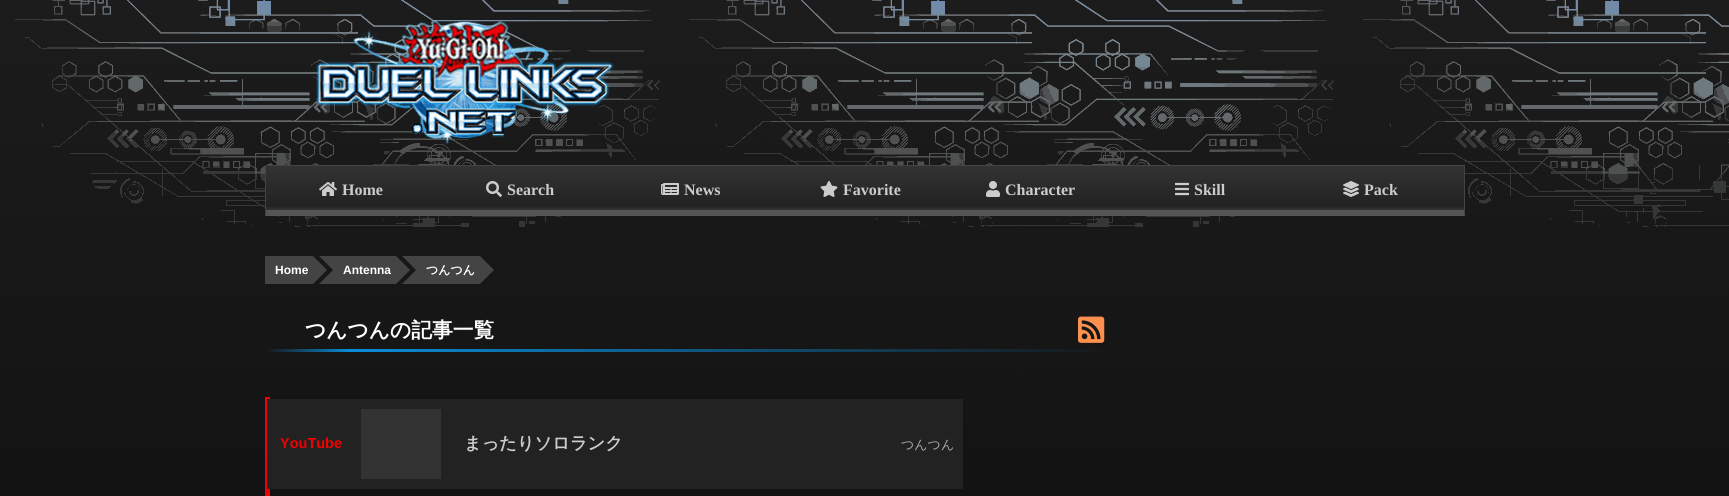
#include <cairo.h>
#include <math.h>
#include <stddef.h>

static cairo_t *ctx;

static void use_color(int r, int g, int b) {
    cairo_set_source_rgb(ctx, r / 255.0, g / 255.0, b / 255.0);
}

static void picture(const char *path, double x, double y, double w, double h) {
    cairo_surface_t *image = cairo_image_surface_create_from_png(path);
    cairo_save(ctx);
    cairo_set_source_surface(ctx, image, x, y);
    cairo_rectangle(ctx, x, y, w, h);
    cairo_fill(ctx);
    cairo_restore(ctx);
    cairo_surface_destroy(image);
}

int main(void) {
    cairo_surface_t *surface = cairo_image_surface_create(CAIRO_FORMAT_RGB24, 1729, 496);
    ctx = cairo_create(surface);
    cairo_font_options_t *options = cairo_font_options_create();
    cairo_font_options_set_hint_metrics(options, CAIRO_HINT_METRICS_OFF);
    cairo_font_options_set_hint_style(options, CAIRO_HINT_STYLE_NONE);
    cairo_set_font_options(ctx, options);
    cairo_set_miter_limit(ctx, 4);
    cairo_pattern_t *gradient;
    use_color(255, 255, 255);
    cairo_paint(ctx);
    picture("img1.png", 0, 0, 1729, 496);
    picture("img2.png", 316, 20, 298, 125);
    gradient = cairo_pattern_create_linear(865, 166, 865, 210);
    cairo_pattern_add_color_stop_rgba(gradient, 0, 0.2, 0.2, 0.2, 1);
    cairo_pattern_add_color_stop_rgba(gradient, 0.9, 0.133, 0.133, 0.133, 1);
    cairo_pattern_add_color_stop_rgba(gradient, 1, 0.2, 0.2, 0.2, 1);
    cairo_set_source(ctx, gradient);
    cairo_pattern_destroy(gradient);
    cairo_rectangle(ctx, 266, 166, 1198, 44);
    cairo_fill(ctx);
    use_color(68, 68, 68);
    cairo_rectangle(ctx, 265, 165, 1200, 1);
    cairo_fill(ctx);
    cairo_new_path(ctx);
    cairo_move_to(ctx, 1465, 165);
    cairo_line_to(ctx, 1465, 216);
    cairo_line_to(ctx, 1464, 210);
    cairo_line_to(ctx, 1464, 166);
    cairo_close_path(ctx);
    cairo_fill(ctx);
    use_color(85, 85, 85);
    cairo_new_path(ctx);
    cairo_move_to(ctx, 1465, 216);
    cairo_line_to(ctx, 265, 216);
    cairo_line_to(ctx, 266, 210);
    cairo_line_to(ctx, 1464, 210);
    cairo_close_path(ctx);
    cairo_fill(ctx);
    use_color(68, 68, 68);
    cairo_new_path(ctx);
    cairo_move_to(ctx, 265, 216);
    cairo_line_to(ctx, 265, 165);
    cairo_line_to(ctx, 266, 166);
    cairo_line_to(ctx, 266, 210);
    cairo_close_path(ctx);
    cairo_fill(ctx);
    picture("img3.png", 319, 182, 18, 14);
    cairo_select_font_face(ctx, "Liberation Serif", CAIRO_FONT_SLANT_NORMAL, CAIRO_FONT_WEIGHT_BOLD);
    cairo_set_font_size(ctx, 16);
    use_color(204, 204, 204);
    cairo_move_to(ctx, 342, 195);
    cairo_show_text(ctx, "Home");
    picture("img4.png", 486, 181, 16, 16);
    cairo_move_to(ctx, 507, 195);
    cairo_show_text(ctx, "Search");
    picture("img5.png", 661, 183, 18, 12);
    cairo_move_to(ctx, 684, 195);
    cairo_show_text(ctx, "News");
    picture("img6.png", 820, 181, 18, 16);
    cairo_move_to(ctx, 843, 195);
    cairo_show_text(ctx, "Favorite");
    picture("img7.png", 986, 181, 14, 16);
    cairo_move_to(ctx, 1005, 195);
    cairo_show_text(ctx, "Character");
    picture("img8.png", 1175, 182, 14, 14);
    cairo_move_to(ctx, 1194, 195);
    cairo_show_text(ctx, "Skill");
    picture("img9.png", 1343, 181, 16, 16);
    cairo_move_to(ctx, 1364, 195);
    cairo_show_text(ctx, "Pack");
    use_color(68, 68, 68);
    cairo_rectangle(ctx, 265, 256, 48, 28);
    cairo_fill(ctx);
    cairo_select_font_face(ctx, "Liberation Sans", CAIRO_FONT_SLANT_NORMAL, CAIRO_FONT_WEIGHT_BOLD);
    cairo_set_font_size(ctx, 12);
    use_color(255, 255, 255);
    cairo_move_to(ctx, 275, 274);
    cairo_show_text(ctx, "Home");
    use_color(68, 68, 68);
    cairo_new_path(ctx);
    cairo_move_to(ctx, 313, 284);
    cairo_line_to(ctx, 313, 256);
    cairo_line_to(ctx, 327, 270);
    cairo_close_path(ctx);
    cairo_fill(ctx);
    cairo_rectangle(ctx, 333, 256, 63, 28);
    cairo_fill(ctx);
    cairo_new_path(ctx);
    cairo_move_to(ctx, 319, 256);
    cairo_line_to(ctx, 333, 256);
    cairo_line_to(ctx, 333, 270);
    cairo_close_path(ctx);
    cairo_move_to(ctx, 333, 284);
    cairo_line_to(ctx, 319, 284);
    cairo_line_to(ctx, 333, 270);
    cairo_close_path(ctx);
    cairo_fill(ctx);
    use_color(255, 255, 255);
    cairo_move_to(ctx, 343, 274);
    cairo_show_text(ctx, "Antenna");
    use_color(68, 68, 68);
    cairo_new_path(ctx);
    cairo_move_to(ctx, 396, 284);
    cairo_line_to(ctx, 396, 256);
    cairo_line_to(ctx, 410, 270);
    cairo_close_path(ctx);
    cairo_fill(ctx);
    cairo_rectangle(ctx, 416, 256, 64, 28);
    cairo_fill(ctx);
    cairo_new_path(ctx);
    cairo_move_to(ctx, 402, 256);
    cairo_line_to(ctx, 416, 256);
    cairo_line_to(ctx, 416, 270);
    cairo_close_path(ctx);
    cairo_move_to(ctx, 416, 284);
    cairo_line_to(ctx, 402, 284);
    cairo_line_to(ctx, 416, 270);
    cairo_close_path(ctx);
    cairo_fill(ctx);
    cairo_select_font_face(ctx, "WenQuanYi Zen Hei", CAIRO_FONT_SLANT_NORMAL, CAIRO_FONT_WEIGHT_BOLD);
    use_color(255, 255, 255);
    cairo_move_to(ctx, 426, 274);
    cairo_show_text(ctx, "つんつん");
    use_color(68, 68, 68);
    cairo_new_path(ctx);
    cairo_move_to(ctx, 480, 284);
    cairo_line_to(ctx, 480, 256);
    cairo_line_to(ctx, 494, 270);
    cairo_close_path(ctx);
    cairo_fill(ctx);
    cairo_set_font_size(ctx, 20.75);
    use_color(255, 255, 255);
    cairo_move_to(ctx, 305, 337);
    cairo_show_text(ctx, "つんつんの記事一覧");
    gradient = cairo_pattern_create_linear(265, 351, 1115, 351);
    cairo_pattern_add_color_stop_rgba(gradient, 0, 0.086, 0.086, 0.086, 1);
    cairo_pattern_add_color_stop_rgba(gradient, 0.1, 0.035, 0.549, 0.847, 1);
    cairo_pattern_add_color_stop_rgba(gradient, 1, 0.086, 0.086, 0.086, 1);
    cairo_set_source(ctx, gradient);
    cairo_pattern_destroy(gradient);
    cairo_rectangle(ctx, 265, 349, 850, 3);
    cairo_fill(ctx);
    picture("img10.png", 1078, 316, 27, 27);
    use_color(244, 0, 0);
    cairo_rectangle(ctx, 265, 397, 5, 99);
    cairo_fill(ctx);
    use_color(34, 34, 34);
    cairo_rectangle(ctx, 267, 399, 696, 90);
    cairo_fill(ctx);
    cairo_select_font_face(ctx, "Liberation Sans", CAIRO_FONT_SLANT_NORMAL, CAIRO_FONT_WEIGHT_BOLD);
    cairo_set_font_size(ctx, 14.5);
    use_color(244, 0, 0);
    cairo_move_to(ctx, 280, 448);
    cairo_show_text(ctx, "YouTube");
    use_color(51, 51, 51);
    cairo_rectangle(ctx, 361, 409, 80, 70);
    cairo_fill(ctx);
    cairo_select_font_face(ctx, "WenQuanYi Zen Hei", CAIRO_FONT_SLANT_NORMAL, CAIRO_FONT_WEIGHT_BOLD);
    cairo_set_font_size(ctx, 17.25);
    use_color(204, 204, 204);
    cairo_move_to(ctx, 464, 449);
    cairo_show_text(ctx, "まったりソロランク");
    cairo_select_font_face(ctx, "WenQuanYi Zen Hei Medium", CAIRO_FONT_SLANT_NORMAL, CAIRO_FONT_WEIGHT_NORMAL);
    cairo_set_font_size(ctx, 13);
    use_color(170, 170, 170);
    cairo_move_to(ctx, 901, 449);
    cairo_show_text(ctx, "つんつん");
    cairo_surface_write_to_png(surface, "result.png");
    cairo_font_options_destroy(options);
    cairo_destroy(ctx);
    cairo_surface_destroy(surface);
    return 0;
}
